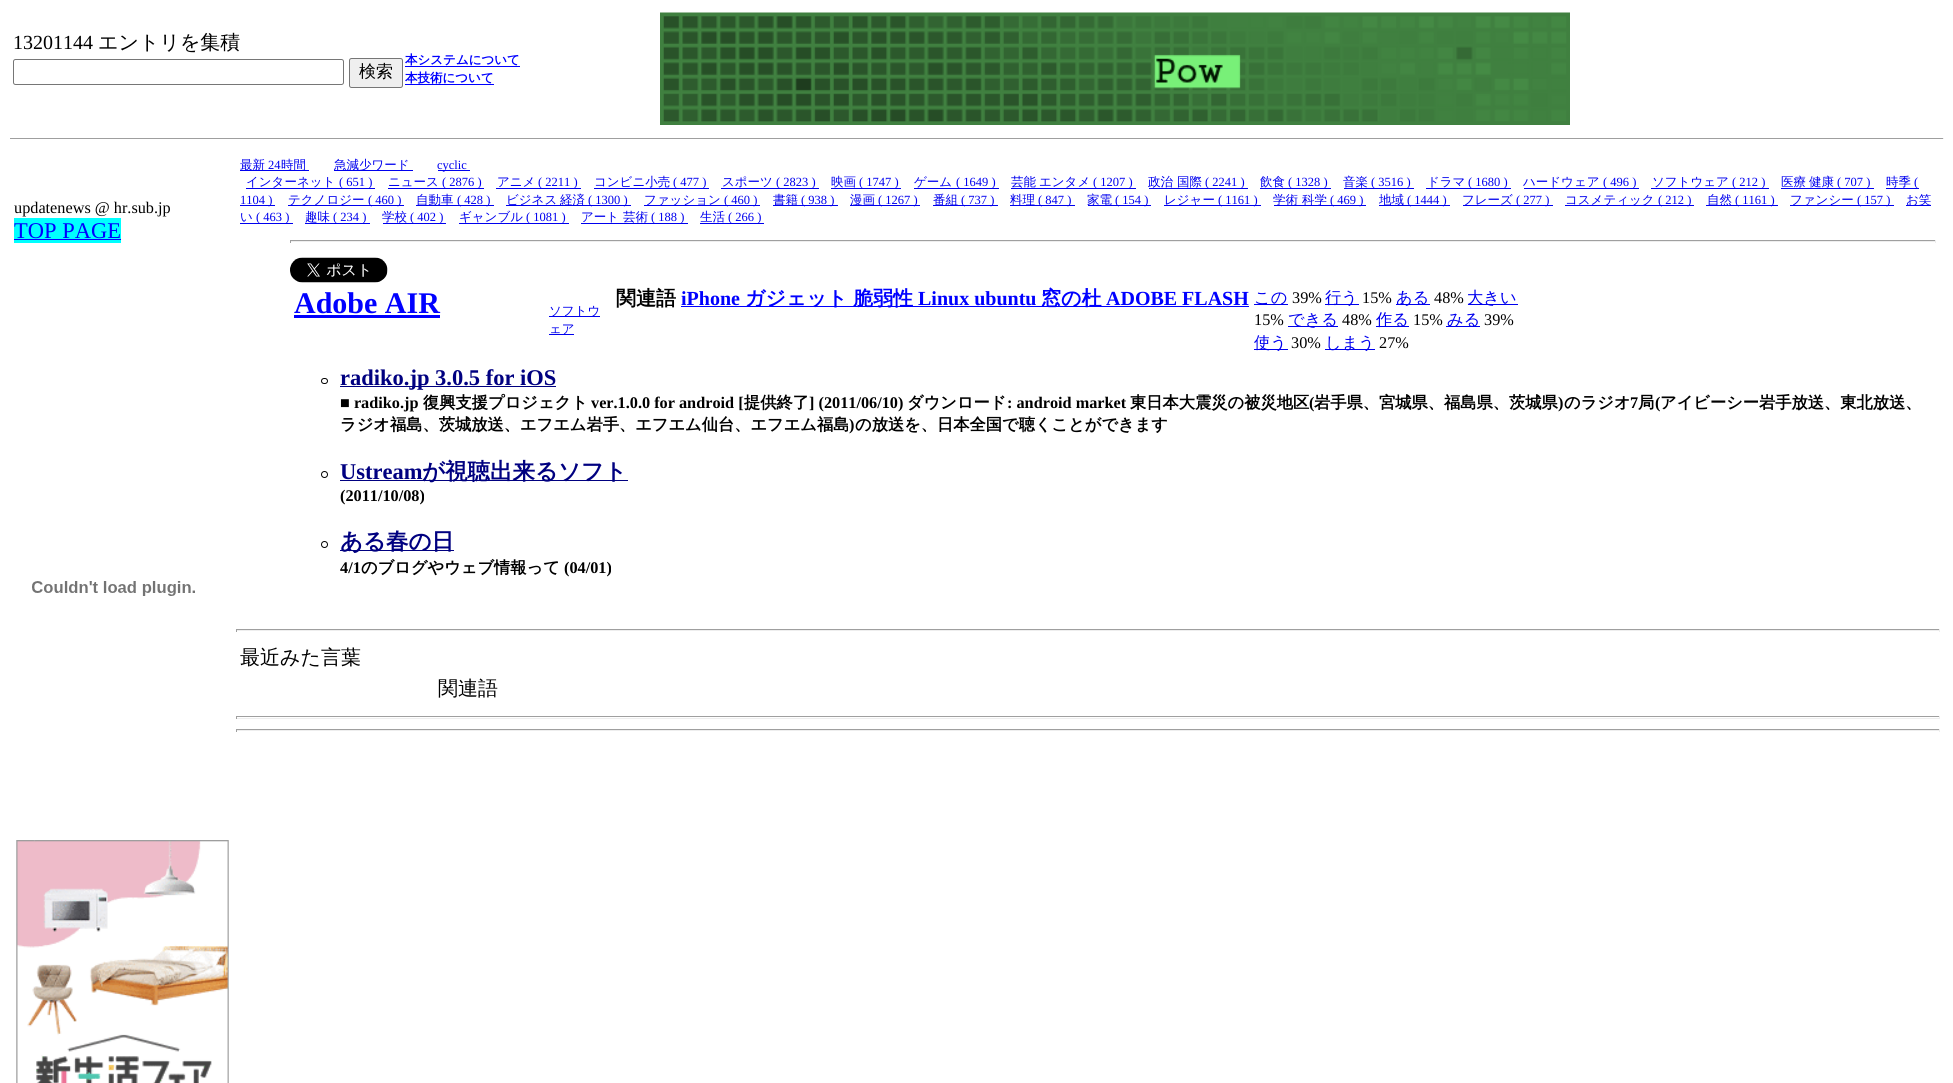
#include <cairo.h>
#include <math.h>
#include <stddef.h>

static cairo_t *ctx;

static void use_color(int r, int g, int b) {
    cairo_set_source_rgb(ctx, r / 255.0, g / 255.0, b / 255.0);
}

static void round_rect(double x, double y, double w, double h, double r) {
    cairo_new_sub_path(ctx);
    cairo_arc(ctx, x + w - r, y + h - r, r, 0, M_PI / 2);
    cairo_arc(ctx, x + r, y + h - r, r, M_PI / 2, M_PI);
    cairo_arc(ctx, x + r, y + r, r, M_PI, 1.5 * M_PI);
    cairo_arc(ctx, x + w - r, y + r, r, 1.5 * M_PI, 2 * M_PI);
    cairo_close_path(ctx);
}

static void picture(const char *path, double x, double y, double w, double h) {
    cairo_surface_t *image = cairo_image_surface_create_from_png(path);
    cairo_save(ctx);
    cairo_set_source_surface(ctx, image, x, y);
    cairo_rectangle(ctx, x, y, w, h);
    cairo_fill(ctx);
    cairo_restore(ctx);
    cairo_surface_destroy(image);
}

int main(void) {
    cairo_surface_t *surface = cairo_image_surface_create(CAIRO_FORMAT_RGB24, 1953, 1083);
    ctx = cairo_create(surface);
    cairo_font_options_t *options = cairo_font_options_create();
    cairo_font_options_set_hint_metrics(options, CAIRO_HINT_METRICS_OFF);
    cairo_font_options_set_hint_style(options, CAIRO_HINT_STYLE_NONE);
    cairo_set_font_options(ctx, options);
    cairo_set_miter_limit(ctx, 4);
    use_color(255, 255, 255);
    cairo_paint(ctx);
    cairo_select_font_face(ctx, "Liberation Serif", CAIRO_FONT_SLANT_NORMAL, CAIRO_FONT_WEIGHT_NORMAL);
    cairo_set_font_size(ctx, 20);
    use_color(0, 0, 0);
    cairo_move_to(ctx, 13, 49);
    cairo_show_text(ctx, "13201144");
    cairo_select_font_face(ctx, "WenQuanYi Zen Hei Medium", CAIRO_FONT_SLANT_NORMAL, CAIRO_FONT_WEIGHT_NORMAL);
    cairo_move_to(ctx, 98, 49);
    cairo_show_text(ctx, "エントリを集積");
    round_rect(13.5, 59.5, 330, 25, 2);
    use_color(118, 118, 118);
    cairo_set_line_width(ctx, 1);
    cairo_stroke(ctx);
    use_color(239, 239, 239);
    round_rect(349.5, 58.5, 53, 29, 2);
    cairo_fill_preserve(ctx);
    use_color(118, 118, 118);
    cairo_stroke(ctx);
    cairo_set_font_size(ctx, 17);
    use_color(0, 0, 0);
    cairo_move_to(ctx, 359, 77);
    cairo_show_text(ctx, "検索");
    cairo_select_font_face(ctx, "WenQuanYi Zen Hei", CAIRO_FONT_SLANT_NORMAL, CAIRO_FONT_WEIGHT_BOLD);
    cairo_set_font_size(ctx, 12.5);
    use_color(0, 0, 255);
    cairo_move_to(ctx, 405, 64);
    cairo_show_text(ctx, "本システムについて");
    cairo_rectangle(ctx, 405, 66, 115, 1);
    cairo_fill(ctx);
    cairo_move_to(ctx, 405, 82);
    cairo_show_text(ctx, "本技術について");
    cairo_rectangle(ctx, 405, 84, 89, 1);
    cairo_fill(ctx);
    picture("img1.png", 660, 12, 910, 113);
    use_color(159, 159, 159);
    cairo_rectangle(ctx, 10, 138, 1934, 1);
    cairo_fill(ctx);
    use_color(238, 238, 238);
    cairo_rectangle(ctx, 1943, 138, 1, 1);
    cairo_fill(ctx);
    cairo_select_font_face(ctx, "Liberation Serif", CAIRO_FONT_SLANT_NORMAL, CAIRO_FONT_WEIGHT_NORMAL);
    cairo_set_font_size(ctx, 16.25);
    use_color(0, 0, 0);
    cairo_move_to(ctx, 14, 213);
    cairo_show_text(ctx, "updatenews @ hr.sub.jp");
    use_color(0, 255, 255);
    cairo_rectangle(ctx, 14, 218, 107, 25);
    cairo_fill(ctx);
    cairo_set_font_size(ctx, 22.5);
    use_color(0, 0, 255);
    cairo_move_to(ctx, 14, 238);
    cairo_show_text(ctx, "TOP PAGE");
    cairo_rectangle(ctx, 14, 239, 107, 1);
    cairo_fill(ctx);
    picture("img2.png", 32, 581, 163, 15);
    picture("img3.png", 16, 840, 213, 243);
    use_color(0, 0, 238);
    cairo_rectangle(ctx, 240, 170, 69, 1);
    cairo_fill(ctx);
    cairo_select_font_face(ctx, "WenQuanYi Zen Hei Medium", CAIRO_FONT_SLANT_NORMAL, CAIRO_FONT_WEIGHT_NORMAL);
    cairo_set_font_size(ctx, 12.5);
    cairo_move_to(ctx, 240, 169);
    cairo_show_text(ctx, "最新");
    cairo_select_font_face(ctx, "Liberation Serif", CAIRO_FONT_SLANT_NORMAL, CAIRO_FONT_WEIGHT_NORMAL);
    cairo_move_to(ctx, 268, 169);
    cairo_show_text(ctx, "24");
    cairo_select_font_face(ctx, "WenQuanYi Zen Hei Medium", CAIRO_FONT_SLANT_NORMAL, CAIRO_FONT_WEIGHT_NORMAL);
    cairo_move_to(ctx, 281, 169);
    cairo_show_text(ctx, "時間");
    cairo_rectangle(ctx, 334, 170, 79, 1);
    cairo_fill(ctx);
    cairo_move_to(ctx, 334, 169);
    cairo_show_text(ctx, "急減少ワード");
    cairo_rectangle(ctx, 438, 170, 32, 1);
    cairo_fill(ctx);
    cairo_select_font_face(ctx, "Liberation Serif", CAIRO_FONT_SLANT_NORMAL, CAIRO_FONT_WEIGHT_NORMAL);
    cairo_move_to(ctx, 437, 169);
    cairo_show_text(ctx, "cyclic");
    cairo_select_font_face(ctx, "WenQuanYi Zen Hei Medium", CAIRO_FONT_SLANT_NORMAL, CAIRO_FONT_WEIGHT_NORMAL);
    cairo_move_to(ctx, 246, 186);
    cairo_show_text(ctx, "インターネット");
    cairo_rectangle(ctx, 246, 188, 129, 1);
    cairo_fill(ctx);
    cairo_select_font_face(ctx, "Liberation Serif", CAIRO_FONT_SLANT_NORMAL, CAIRO_FONT_WEIGHT_NORMAL);
    cairo_move_to(ctx, 339, 186);
    cairo_show_text(ctx, "( 651 )");
    cairo_select_font_face(ctx, "WenQuanYi Zen Hei Medium", CAIRO_FONT_SLANT_NORMAL, CAIRO_FONT_WEIGHT_NORMAL);
    cairo_move_to(ctx, 388, 186);
    cairo_show_text(ctx, "ニュース");
    cairo_rectangle(ctx, 388, 188, 96, 1);
    cairo_fill(ctx);
    cairo_select_font_face(ctx, "Liberation Serif", CAIRO_FONT_SLANT_NORMAL, CAIRO_FONT_WEIGHT_NORMAL);
    cairo_move_to(ctx, 442, 186);
    cairo_show_text(ctx, "( 2876 )");
    cairo_select_font_face(ctx, "WenQuanYi Zen Hei Medium", CAIRO_FONT_SLANT_NORMAL, CAIRO_FONT_WEIGHT_NORMAL);
    cairo_move_to(ctx, 497, 186);
    cairo_show_text(ctx, "アニメ");
    cairo_rectangle(ctx, 496, 188, 85, 1);
    cairo_fill(ctx);
    cairo_select_font_face(ctx, "Liberation Serif", CAIRO_FONT_SLANT_NORMAL, CAIRO_FONT_WEIGHT_NORMAL);
    cairo_move_to(ctx, 538, 186);
    cairo_show_text(ctx, "( 2211 )");
    cairo_select_font_face(ctx, "WenQuanYi Zen Hei Medium", CAIRO_FONT_SLANT_NORMAL, CAIRO_FONT_WEIGHT_NORMAL);
    cairo_move_to(ctx, 594, 186);
    cairo_show_text(ctx, "コンビニ小売");
    cairo_rectangle(ctx, 594, 188, 115, 1);
    cairo_fill(ctx);
    cairo_select_font_face(ctx, "Liberation Serif", CAIRO_FONT_SLANT_NORMAL, CAIRO_FONT_WEIGHT_NORMAL);
    cairo_move_to(ctx, 673, 186);
    cairo_show_text(ctx, "( 477 )");
    cairo_select_font_face(ctx, "WenQuanYi Zen Hei Medium", CAIRO_FONT_SLANT_NORMAL, CAIRO_FONT_WEIGHT_NORMAL);
    cairo_move_to(ctx, 722, 186);
    cairo_show_text(ctx, "スポーツ");
    cairo_rectangle(ctx, 721, 188, 98, 1);
    cairo_fill(ctx);
    cairo_select_font_face(ctx, "Liberation Serif", CAIRO_FONT_SLANT_NORMAL, CAIRO_FONT_WEIGHT_NORMAL);
    cairo_move_to(ctx, 776, 186);
    cairo_show_text(ctx, "( 2823 )");
    cairo_select_font_face(ctx, "WenQuanYi Zen Hei Medium", CAIRO_FONT_SLANT_NORMAL, CAIRO_FONT_WEIGHT_NORMAL);
    cairo_move_to(ctx, 831, 186);
    cairo_show_text(ctx, "映画");
    cairo_rectangle(ctx, 831, 188, 70, 1);
    cairo_fill(ctx);
    cairo_select_font_face(ctx, "Liberation Serif", CAIRO_FONT_SLANT_NORMAL, CAIRO_FONT_WEIGHT_NORMAL);
    cairo_move_to(ctx, 859, 186);
    cairo_show_text(ctx, "( 1747 )");
    cairo_select_font_face(ctx, "WenQuanYi Zen Hei Medium", CAIRO_FONT_SLANT_NORMAL, CAIRO_FONT_WEIGHT_NORMAL);
    cairo_move_to(ctx, 914, 186);
    cairo_show_text(ctx, "ゲーム");
    cairo_rectangle(ctx, 914, 188, 85, 1);
    cairo_fill(ctx);
    cairo_select_font_face(ctx, "Liberation Serif", CAIRO_FONT_SLANT_NORMAL, CAIRO_FONT_WEIGHT_NORMAL);
    cairo_move_to(ctx, 956, 186);
    cairo_show_text(ctx, "( 1649 )");
    cairo_select_font_face(ctx, "WenQuanYi Zen Hei Medium", CAIRO_FONT_SLANT_NORMAL, CAIRO_FONT_WEIGHT_NORMAL);
    cairo_move_to(ctx, 1011, 186);
    cairo_show_text(ctx, "芸能");
    cairo_move_to(ctx, 1039, 186);
    cairo_show_text(ctx, "エンタメ");
    cairo_rectangle(ctx, 1011, 188, 125, 1);
    cairo_fill(ctx);
    cairo_select_font_face(ctx, "Liberation Serif", CAIRO_FONT_SLANT_NORMAL, CAIRO_FONT_WEIGHT_NORMAL);
    cairo_move_to(ctx, 1093, 186);
    cairo_show_text(ctx, "( 1207 )");
    cairo_select_font_face(ctx, "WenQuanYi Zen Hei Medium", CAIRO_FONT_SLANT_NORMAL, CAIRO_FONT_WEIGHT_NORMAL);
    cairo_move_to(ctx, 1148, 186);
    cairo_show_text(ctx, "政治");
    cairo_move_to(ctx, 1177, 186);
    cairo_show_text(ctx, "国際");
    cairo_rectangle(ctx, 1149, 188, 99, 1);
    cairo_fill(ctx);
    cairo_select_font_face(ctx, "Liberation Serif", CAIRO_FONT_SLANT_NORMAL, CAIRO_FONT_WEIGHT_NORMAL);
    cairo_move_to(ctx, 1205, 186);
    cairo_show_text(ctx, "( 2241 )");
    cairo_select_font_face(ctx, "WenQuanYi Zen Hei Medium", CAIRO_FONT_SLANT_NORMAL, CAIRO_FONT_WEIGHT_NORMAL);
    cairo_move_to(ctx, 1260, 186);
    cairo_show_text(ctx, "飲食");
    cairo_rectangle(ctx, 1260, 188, 71, 1);
    cairo_fill(ctx);
    cairo_select_font_face(ctx, "Liberation Serif", CAIRO_FONT_SLANT_NORMAL, CAIRO_FONT_WEIGHT_NORMAL);
    cairo_move_to(ctx, 1288, 186);
    cairo_show_text(ctx, "( 1328 )");
    cairo_select_font_face(ctx, "WenQuanYi Zen Hei Medium", CAIRO_FONT_SLANT_NORMAL, CAIRO_FONT_WEIGHT_NORMAL);
    cairo_move_to(ctx, 1343, 186);
    cairo_show_text(ctx, "音楽");
    cairo_rectangle(ctx, 1344, 188, 70, 1);
    cairo_fill(ctx);
    cairo_select_font_face(ctx, "Liberation Serif", CAIRO_FONT_SLANT_NORMAL, CAIRO_FONT_WEIGHT_NORMAL);
    cairo_move_to(ctx, 1371, 186);
    cairo_show_text(ctx, "( 3516 )");
    cairo_select_font_face(ctx, "WenQuanYi Zen Hei Medium", CAIRO_FONT_SLANT_NORMAL, CAIRO_FONT_WEIGHT_NORMAL);
    cairo_move_to(ctx, 1427, 186);
    cairo_show_text(ctx, "ドラマ");
    cairo_rectangle(ctx, 1426, 188, 85, 1);
    cairo_fill(ctx);
    cairo_select_font_face(ctx, "Liberation Serif", CAIRO_FONT_SLANT_NORMAL, CAIRO_FONT_WEIGHT_NORMAL);
    cairo_move_to(ctx, 1468, 186);
    cairo_show_text(ctx, "( 1680 )");
    cairo_select_font_face(ctx, "WenQuanYi Zen Hei Medium", CAIRO_FONT_SLANT_NORMAL, CAIRO_FONT_WEIGHT_NORMAL);
    cairo_move_to(ctx, 1523, 186);
    cairo_show_text(ctx, "ハードウェア");
    cairo_rectangle(ctx, 1524, 188, 115, 1);
    cairo_fill(ctx);
    cairo_select_font_face(ctx, "Liberation Serif", CAIRO_FONT_SLANT_NORMAL, CAIRO_FONT_WEIGHT_NORMAL);
    cairo_move_to(ctx, 1603, 186);
    cairo_show_text(ctx, "( 496 )");
    cairo_select_font_face(ctx, "WenQuanYi Zen Hei Medium", CAIRO_FONT_SLANT_NORMAL, CAIRO_FONT_WEIGHT_NORMAL);
    cairo_move_to(ctx, 1652, 186);
    cairo_show_text(ctx, "ソフトウェア");
    cairo_rectangle(ctx, 1651, 188, 118, 1);
    cairo_fill(ctx);
    cairo_select_font_face(ctx, "Liberation Serif", CAIRO_FONT_SLANT_NORMAL, CAIRO_FONT_WEIGHT_NORMAL);
    cairo_move_to(ctx, 1732, 186);
    cairo_show_text(ctx, "( 212 )");
    cairo_select_font_face(ctx, "WenQuanYi Zen Hei Medium", CAIRO_FONT_SLANT_NORMAL, CAIRO_FONT_WEIGHT_NORMAL);
    cairo_move_to(ctx, 1781, 186);
    cairo_show_text(ctx, "医療");
    cairo_move_to(ctx, 1809, 186);
    cairo_show_text(ctx, "健康");
    cairo_rectangle(ctx, 1781, 188, 93, 1);
    cairo_fill(ctx);
    cairo_select_font_face(ctx, "Liberation Serif", CAIRO_FONT_SLANT_NORMAL, CAIRO_FONT_WEIGHT_NORMAL);
    cairo_move_to(ctx, 1837, 186);
    cairo_show_text(ctx, "( 707 )");
    cairo_select_font_face(ctx, "WenQuanYi Zen Hei Medium", CAIRO_FONT_SLANT_NORMAL, CAIRO_FONT_WEIGHT_NORMAL);
    cairo_move_to(ctx, 1886, 186);
    cairo_show_text(ctx, "時季");
    cairo_rectangle(ctx, 1886, 188, 33, 1);
    cairo_fill(ctx);
    cairo_select_font_face(ctx, "Liberation Serif", CAIRO_FONT_SLANT_NORMAL, CAIRO_FONT_WEIGHT_NORMAL);
    cairo_move_to(ctx, 1914, 186);
    cairo_show_text(ctx, "(");
    cairo_rectangle(ctx, 240, 205, 35, 1);
    cairo_fill(ctx);
    cairo_move_to(ctx, 240, 204);
    cairo_show_text(ctx, "1104 )");
    cairo_rectangle(ctx, 288, 205, 116, 1);
    cairo_fill(ctx);
    cairo_select_font_face(ctx, "WenQuanYi Zen Hei Medium", CAIRO_FONT_SLANT_NORMAL, CAIRO_FONT_WEIGHT_NORMAL);
    cairo_move_to(ctx, 288, 204);
    cairo_show_text(ctx, "テクノロジー");
    cairo_select_font_face(ctx, "Liberation Serif", CAIRO_FONT_SLANT_NORMAL, CAIRO_FONT_WEIGHT_NORMAL);
    cairo_move_to(ctx, 368, 204);
    cairo_show_text(ctx, "( 460 )");
    cairo_rectangle(ctx, 416, 205, 78, 1);
    cairo_fill(ctx);
    cairo_select_font_face(ctx, "WenQuanYi Zen Hei Medium", CAIRO_FONT_SLANT_NORMAL, CAIRO_FONT_WEIGHT_NORMAL);
    cairo_move_to(ctx, 416, 204);
    cairo_show_text(ctx, "自動車");
    cairo_select_font_face(ctx, "Liberation Serif", CAIRO_FONT_SLANT_NORMAL, CAIRO_FONT_WEIGHT_NORMAL);
    cairo_move_to(ctx, 457, 204);
    cairo_show_text(ctx, "( 428 )");
    cairo_rectangle(ctx, 506, 205, 125, 1);
    cairo_fill(ctx);
    cairo_select_font_face(ctx, "WenQuanYi Zen Hei Medium", CAIRO_FONT_SLANT_NORMAL, CAIRO_FONT_WEIGHT_NORMAL);
    cairo_move_to(ctx, 506, 204);
    cairo_show_text(ctx, "ビジネス");
    cairo_move_to(ctx, 560, 204);
    cairo_show_text(ctx, "経済");
    cairo_select_font_face(ctx, "Liberation Serif", CAIRO_FONT_SLANT_NORMAL, CAIRO_FONT_WEIGHT_NORMAL);
    cairo_move_to(ctx, 588, 204);
    cairo_show_text(ctx, "( 1300 )");
    cairo_rectangle(ctx, 644, 205, 116, 1);
    cairo_fill(ctx);
    cairo_select_font_face(ctx, "WenQuanYi Zen Hei Medium", CAIRO_FONT_SLANT_NORMAL, CAIRO_FONT_WEIGHT_NORMAL);
    cairo_move_to(ctx, 644, 204);
    cairo_show_text(ctx, "ファッション");
    cairo_select_font_face(ctx, "Liberation Serif", CAIRO_FONT_SLANT_NORMAL, CAIRO_FONT_WEIGHT_NORMAL);
    cairo_move_to(ctx, 724, 204);
    cairo_show_text(ctx, "( 460 )");
    cairo_rectangle(ctx, 773, 205, 65, 1);
    cairo_fill(ctx);
    cairo_select_font_face(ctx, "WenQuanYi Zen Hei Medium", CAIRO_FONT_SLANT_NORMAL, CAIRO_FONT_WEIGHT_NORMAL);
    cairo_move_to(ctx, 773, 204);
    cairo_show_text(ctx, "書籍");
    cairo_select_font_face(ctx, "Liberation Serif", CAIRO_FONT_SLANT_NORMAL, CAIRO_FONT_WEIGHT_NORMAL);
    cairo_move_to(ctx, 801, 204);
    cairo_show_text(ctx, "( 938 )");
    cairo_rectangle(ctx, 850, 205, 70, 1);
    cairo_fill(ctx);
    cairo_select_font_face(ctx, "WenQuanYi Zen Hei Medium", CAIRO_FONT_SLANT_NORMAL, CAIRO_FONT_WEIGHT_NORMAL);
    cairo_move_to(ctx, 850, 204);
    cairo_show_text(ctx, "漫画");
    cairo_select_font_face(ctx, "Liberation Serif", CAIRO_FONT_SLANT_NORMAL, CAIRO_FONT_WEIGHT_NORMAL);
    cairo_move_to(ctx, 878, 204);
    cairo_show_text(ctx, "( 1267 )");
    cairo_rectangle(ctx, 933, 205, 65, 1);
    cairo_fill(ctx);
    cairo_select_font_face(ctx, "WenQuanYi Zen Hei Medium", CAIRO_FONT_SLANT_NORMAL, CAIRO_FONT_WEIGHT_NORMAL);
    cairo_move_to(ctx, 933, 204);
    cairo_show_text(ctx, "番組");
    cairo_select_font_face(ctx, "Liberation Serif", CAIRO_FONT_SLANT_NORMAL, CAIRO_FONT_WEIGHT_NORMAL);
    cairo_move_to(ctx, 961, 204);
    cairo_show_text(ctx, "( 737 )");
    cairo_rectangle(ctx, 1010, 205, 65, 1);
    cairo_fill(ctx);
    cairo_select_font_face(ctx, "WenQuanYi Zen Hei Medium", CAIRO_FONT_SLANT_NORMAL, CAIRO_FONT_WEIGHT_NORMAL);
    cairo_move_to(ctx, 1010, 204);
    cairo_show_text(ctx, "料理");
    cairo_select_font_face(ctx, "Liberation Serif", CAIRO_FONT_SLANT_NORMAL, CAIRO_FONT_WEIGHT_NORMAL);
    cairo_move_to(ctx, 1038, 204);
    cairo_show_text(ctx, "( 847 )");
    cairo_rectangle(ctx, 1088, 205, 63, 1);
    cairo_fill(ctx);
    cairo_select_font_face(ctx, "WenQuanYi Zen Hei Medium", CAIRO_FONT_SLANT_NORMAL, CAIRO_FONT_WEIGHT_NORMAL);
    cairo_move_to(ctx, 1087, 204);
    cairo_show_text(ctx, "家電");
    cairo_select_font_face(ctx, "Liberation Serif", CAIRO_FONT_SLANT_NORMAL, CAIRO_FONT_WEIGHT_NORMAL);
    cairo_move_to(ctx, 1115, 204);
    cairo_show_text(ctx, "( 154 )");
    cairo_rectangle(ctx, 1164, 205, 97, 1);
    cairo_fill(ctx);
    cairo_select_font_face(ctx, "WenQuanYi Zen Hei Medium", CAIRO_FONT_SLANT_NORMAL, CAIRO_FONT_WEIGHT_NORMAL);
    cairo_move_to(ctx, 1164, 204);
    cairo_show_text(ctx, "レジャー");
    cairo_select_font_face(ctx, "Liberation Serif", CAIRO_FONT_SLANT_NORMAL, CAIRO_FONT_WEIGHT_NORMAL);
    cairo_move_to(ctx, 1218, 204);
    cairo_show_text(ctx, "( 1161 )");
    cairo_rectangle(ctx, 1274, 205, 92, 1);
    cairo_fill(ctx);
    cairo_select_font_face(ctx, "WenQuanYi Zen Hei Medium", CAIRO_FONT_SLANT_NORMAL, CAIRO_FONT_WEIGHT_NORMAL);
    cairo_move_to(ctx, 1273, 204);
    cairo_show_text(ctx, "学術");
    cairo_move_to(ctx, 1302, 204);
    cairo_show_text(ctx, "科学");
    cairo_select_font_face(ctx, "Liberation Serif", CAIRO_FONT_SLANT_NORMAL, CAIRO_FONT_WEIGHT_NORMAL);
    cairo_move_to(ctx, 1330, 204);
    cairo_show_text(ctx, "( 469 )");
    cairo_rectangle(ctx, 1379, 205, 71, 1);
    cairo_fill(ctx);
    cairo_select_font_face(ctx, "WenQuanYi Zen Hei Medium", CAIRO_FONT_SLANT_NORMAL, CAIRO_FONT_WEIGHT_NORMAL);
    cairo_move_to(ctx, 1379, 204);
    cairo_show_text(ctx, "地域");
    cairo_select_font_face(ctx, "Liberation Serif", CAIRO_FONT_SLANT_NORMAL, CAIRO_FONT_WEIGHT_NORMAL);
    cairo_move_to(ctx, 1407, 204);
    cairo_show_text(ctx, "( 1444 )");
    cairo_rectangle(ctx, 1463, 205, 90, 1);
    cairo_fill(ctx);
    cairo_select_font_face(ctx, "WenQuanYi Zen Hei Medium", CAIRO_FONT_SLANT_NORMAL, CAIRO_FONT_WEIGHT_NORMAL);
    cairo_move_to(ctx, 1462, 204);
    cairo_show_text(ctx, "フレーズ");
    cairo_select_font_face(ctx, "Liberation Serif", CAIRO_FONT_SLANT_NORMAL, CAIRO_FONT_WEIGHT_NORMAL);
    cairo_move_to(ctx, 1516, 204);
    cairo_show_text(ctx, "( 277 )");
    cairo_rectangle(ctx, 1565, 205, 129, 1);
    cairo_fill(ctx);
    cairo_select_font_face(ctx, "WenQuanYi Zen Hei Medium", CAIRO_FONT_SLANT_NORMAL, CAIRO_FONT_WEIGHT_NORMAL);
    cairo_move_to(ctx, 1565, 204);
    cairo_show_text(ctx, "コスメティック");
    cairo_select_font_face(ctx, "Liberation Serif", CAIRO_FONT_SLANT_NORMAL, CAIRO_FONT_WEIGHT_NORMAL);
    cairo_move_to(ctx, 1658, 204);
    cairo_show_text(ctx, "( 212 )");
    cairo_rectangle(ctx, 1706, 205, 72, 1);
    cairo_fill(ctx);
    cairo_select_font_face(ctx, "WenQuanYi Zen Hei Medium", CAIRO_FONT_SLANT_NORMAL, CAIRO_FONT_WEIGHT_NORMAL);
    cairo_move_to(ctx, 1707, 204);
    cairo_show_text(ctx, "自然");
    cairo_select_font_face(ctx, "Liberation Serif", CAIRO_FONT_SLANT_NORMAL, CAIRO_FONT_WEIGHT_NORMAL);
    cairo_move_to(ctx, 1735, 204);
    cairo_show_text(ctx, "( 1161 )");
    cairo_rectangle(ctx, 1790, 205, 104, 1);
    cairo_fill(ctx);
    cairo_select_font_face(ctx, "WenQuanYi Zen Hei Medium", CAIRO_FONT_SLANT_NORMAL, CAIRO_FONT_WEIGHT_NORMAL);
    cairo_move_to(ctx, 1790, 204);
    cairo_show_text(ctx, "ファンシー");
    cairo_select_font_face(ctx, "Liberation Serif", CAIRO_FONT_SLANT_NORMAL, CAIRO_FONT_WEIGHT_NORMAL);
    cairo_move_to(ctx, 1857, 204);
    cairo_show_text(ctx, "( 157 )");
    cairo_rectangle(ctx, 1906, 205, 25, 1);
    cairo_fill(ctx);
    cairo_select_font_face(ctx, "WenQuanYi Zen Hei Medium", CAIRO_FONT_SLANT_NORMAL, CAIRO_FONT_WEIGHT_NORMAL);
    cairo_move_to(ctx, 1906, 204);
    cairo_show_text(ctx, "お笑");
    cairo_move_to(ctx, 240, 221);
    cairo_show_text(ctx, "い");
    cairo_rectangle(ctx, 240, 223, 53, 1);
    cairo_fill(ctx);
    cairo_select_font_face(ctx, "Liberation Serif", CAIRO_FONT_SLANT_NORMAL, CAIRO_FONT_WEIGHT_NORMAL);
    cairo_move_to(ctx, 256, 221);
    cairo_show_text(ctx, "( 463 )");
    cairo_select_font_face(ctx, "WenQuanYi Zen Hei Medium", CAIRO_FONT_SLANT_NORMAL, CAIRO_FONT_WEIGHT_NORMAL);
    cairo_move_to(ctx, 305, 221);
    cairo_show_text(ctx, "趣味");
    cairo_rectangle(ctx, 305, 223, 65, 1);
    cairo_fill(ctx);
    cairo_select_font_face(ctx, "Liberation Serif", CAIRO_FONT_SLANT_NORMAL, CAIRO_FONT_WEIGHT_NORMAL);
    cairo_move_to(ctx, 333, 221);
    cairo_show_text(ctx, "( 234 )");
    cairo_select_font_face(ctx, "WenQuanYi Zen Hei Medium", CAIRO_FONT_SLANT_NORMAL, CAIRO_FONT_WEIGHT_NORMAL);
    cairo_move_to(ctx, 382, 221);
    cairo_show_text(ctx, "学校");
    cairo_rectangle(ctx, 383, 223, 63, 1);
    cairo_fill(ctx);
    cairo_select_font_face(ctx, "Liberation Serif", CAIRO_FONT_SLANT_NORMAL, CAIRO_FONT_WEIGHT_NORMAL);
    cairo_move_to(ctx, 410, 221);
    cairo_show_text(ctx, "( 402 )");
    cairo_select_font_face(ctx, "WenQuanYi Zen Hei Medium", CAIRO_FONT_SLANT_NORMAL, CAIRO_FONT_WEIGHT_NORMAL);
    cairo_move_to(ctx, 459, 221);
    cairo_show_text(ctx, "ギャンブル");
    cairo_rectangle(ctx, 459, 223, 110, 1);
    cairo_fill(ctx);
    cairo_select_font_face(ctx, "Liberation Serif", CAIRO_FONT_SLANT_NORMAL, CAIRO_FONT_WEIGHT_NORMAL);
    cairo_move_to(ctx, 526, 221);
    cairo_show_text(ctx, "( 1081 )");
    cairo_select_font_face(ctx, "WenQuanYi Zen Hei Medium", CAIRO_FONT_SLANT_NORMAL, CAIRO_FONT_WEIGHT_NORMAL);
    cairo_move_to(ctx, 581, 221);
    cairo_show_text(ctx, "アート");
    cairo_move_to(ctx, 623, 221);
    cairo_show_text(ctx, "芸術");
    cairo_rectangle(ctx, 581, 223, 107, 1);
    cairo_fill(ctx);
    cairo_select_font_face(ctx, "Liberation Serif", CAIRO_FONT_SLANT_NORMAL, CAIRO_FONT_WEIGHT_NORMAL);
    cairo_move_to(ctx, 651, 221);
    cairo_show_text(ctx, "( 188 )");
    cairo_select_font_face(ctx, "WenQuanYi Zen Hei Medium", CAIRO_FONT_SLANT_NORMAL, CAIRO_FONT_WEIGHT_NORMAL);
    cairo_move_to(ctx, 700, 221);
    cairo_show_text(ctx, "生活");
    cairo_rectangle(ctx, 700, 223, 64, 1);
    cairo_fill(ctx);
    cairo_select_font_face(ctx, "Liberation Serif", CAIRO_FONT_SLANT_NORMAL, CAIRO_FONT_WEIGHT_NORMAL);
    cairo_move_to(ctx, 728, 221);
    cairo_show_text(ctx, "( 266 )");
    use_color(159, 159, 159);
    cairo_rectangle(ctx, 290, 240, 1646, 1);
    cairo_fill(ctx);
    use_color(238, 238, 238);
    cairo_rectangle(ctx, 1935, 240, 1, 3);
    cairo_fill(ctx);
    cairo_rectangle(ctx, 290, 241, 1646, 1);
    cairo_fill(ctx);
    use_color(159, 159, 159);
    cairo_rectangle(ctx, 290, 240, 1, 3);
    cairo_fill(ctx);
    picture("img4.png", 290, 257, 98, 26);
    cairo_select_font_face(ctx, "Liberation Serif", CAIRO_FONT_SLANT_NORMAL, CAIRO_FONT_WEIGHT_BOLD);
    cairo_set_font_size(ctx, 30);
    use_color(0, 0, 255);
    cairo_move_to(ctx, 294, 313);
    cairo_show_text(ctx, "Adobe AIR");
    cairo_rectangle(ctx, 294, 315, 146, 3);
    cairo_fill(ctx);
    use_color(0, 0, 238);
    cairo_rectangle(ctx, 549, 316, 51, 1);
    cairo_fill(ctx);
    cairo_select_font_face(ctx, "WenQuanYi Zen Hei Medium", CAIRO_FONT_SLANT_NORMAL, CAIRO_FONT_WEIGHT_NORMAL);
    cairo_set_font_size(ctx, 12.5);
    cairo_move_to(ctx, 549, 315);
    cairo_show_text(ctx, "ソフトウ");
    cairo_rectangle(ctx, 549, 334, 25, 1);
    cairo_fill(ctx);
    cairo_move_to(ctx, 549, 333);
    cairo_show_text(ctx, "ェア");
    cairo_select_font_face(ctx, "WenQuanYi Zen Hei", CAIRO_FONT_SLANT_NORMAL, CAIRO_FONT_WEIGHT_BOLD);
    cairo_set_font_size(ctx, 20);
    use_color(0, 0, 0);
    cairo_move_to(ctx, 616, 305);
    cairo_show_text(ctx, "関連語");
    cairo_select_font_face(ctx, "Liberation Serif", CAIRO_FONT_SLANT_NORMAL, CAIRO_FONT_WEIGHT_BOLD);
    use_color(0, 0, 255);
    cairo_move_to(ctx, 681, 305);
    cairo_show_text(ctx, "iPhone");
    cairo_rectangle(ctx, 681, 306, 568, 1);
    cairo_fill(ctx);
    cairo_select_font_face(ctx, "WenQuanYi Zen Hei", CAIRO_FONT_SLANT_NORMAL, CAIRO_FONT_WEIGHT_BOLD);
    cairo_move_to(ctx, 745, 305);
    cairo_show_text(ctx, "ガジェット");
    cairo_move_to(ctx, 853, 305);
    cairo_show_text(ctx, "脆弱性");
    cairo_select_font_face(ctx, "Liberation Serif", CAIRO_FONT_SLANT_NORMAL, CAIRO_FONT_WEIGHT_BOLD);
    cairo_move_to(ctx, 918, 305);
    cairo_show_text(ctx, "Linux ubuntu");
    cairo_select_font_face(ctx, "WenQuanYi Zen Hei", CAIRO_FONT_SLANT_NORMAL, CAIRO_FONT_WEIGHT_BOLD);
    cairo_move_to(ctx, 1041, 305);
    cairo_show_text(ctx, "窓の杜");
    cairo_select_font_face(ctx, "Liberation Serif", CAIRO_FONT_SLANT_NORMAL, CAIRO_FONT_WEIGHT_BOLD);
    cairo_move_to(ctx, 1106, 305);
    cairo_show_text(ctx, "ADOBE FLASH");
    use_color(0, 0, 238);
    cairo_rectangle(ctx, 1254, 304, 34, 1);
    cairo_fill(ctx);
    cairo_select_font_face(ctx, "WenQuanYi Zen Hei Medium", CAIRO_FONT_SLANT_NORMAL, CAIRO_FONT_WEIGHT_NORMAL);
    cairo_set_font_size(ctx, 16.25);
    cairo_move_to(ctx, 1254, 303);
    cairo_show_text(ctx, "この");
    cairo_select_font_face(ctx, "Liberation Serif", CAIRO_FONT_SLANT_NORMAL, CAIRO_FONT_WEIGHT_NORMAL);
    use_color(0, 0, 0);
    cairo_move_to(ctx, 1292, 303);
    cairo_show_text(ctx, "39%");
    use_color(0, 0, 238);
    cairo_rectangle(ctx, 1325, 304, 34, 1);
    cairo_fill(ctx);
    cairo_select_font_face(ctx, "WenQuanYi Zen Hei Medium", CAIRO_FONT_SLANT_NORMAL, CAIRO_FONT_WEIGHT_NORMAL);
    cairo_move_to(ctx, 1325, 303);
    cairo_show_text(ctx, "行う");
    cairo_select_font_face(ctx, "Liberation Serif", CAIRO_FONT_SLANT_NORMAL, CAIRO_FONT_WEIGHT_NORMAL);
    use_color(0, 0, 0);
    cairo_move_to(ctx, 1362, 303);
    cairo_show_text(ctx, "15%");
    use_color(0, 0, 238);
    cairo_rectangle(ctx, 1396, 304, 34, 1);
    cairo_fill(ctx);
    cairo_select_font_face(ctx, "WenQuanYi Zen Hei Medium", CAIRO_FONT_SLANT_NORMAL, CAIRO_FONT_WEIGHT_NORMAL);
    cairo_move_to(ctx, 1396, 303);
    cairo_show_text(ctx, "ある");
    cairo_select_font_face(ctx, "Liberation Serif", CAIRO_FONT_SLANT_NORMAL, CAIRO_FONT_WEIGHT_NORMAL);
    use_color(0, 0, 0);
    cairo_move_to(ctx, 1434, 303);
    cairo_show_text(ctx, "48%");
    use_color(0, 0, 238);
    cairo_rectangle(ctx, 1468, 304, 50, 1);
    cairo_fill(ctx);
    cairo_select_font_face(ctx, "WenQuanYi Zen Hei Medium", CAIRO_FONT_SLANT_NORMAL, CAIRO_FONT_WEIGHT_NORMAL);
    cairo_move_to(ctx, 1467, 303);
    cairo_show_text(ctx, "大きい");
    cairo_select_font_face(ctx, "Liberation Serif", CAIRO_FONT_SLANT_NORMAL, CAIRO_FONT_WEIGHT_NORMAL);
    use_color(0, 0, 0);
    cairo_move_to(ctx, 1254, 325);
    cairo_show_text(ctx, "15%");
    use_color(0, 0, 238);
    cairo_rectangle(ctx, 1288, 326, 50, 1);
    cairo_fill(ctx);
    cairo_select_font_face(ctx, "WenQuanYi Zen Hei Medium", CAIRO_FONT_SLANT_NORMAL, CAIRO_FONT_WEIGHT_NORMAL);
    cairo_move_to(ctx, 1288, 325);
    cairo_show_text(ctx, "できる");
    cairo_select_font_face(ctx, "Liberation Serif", CAIRO_FONT_SLANT_NORMAL, CAIRO_FONT_WEIGHT_NORMAL);
    use_color(0, 0, 0);
    cairo_move_to(ctx, 1342, 325);
    cairo_show_text(ctx, "48%");
    use_color(0, 0, 238);
    cairo_rectangle(ctx, 1376, 326, 33, 1);
    cairo_fill(ctx);
    cairo_select_font_face(ctx, "WenQuanYi Zen Hei Medium", CAIRO_FONT_SLANT_NORMAL, CAIRO_FONT_WEIGHT_NORMAL);
    cairo_move_to(ctx, 1376, 325);
    cairo_show_text(ctx, "作る");
    cairo_select_font_face(ctx, "Liberation Serif", CAIRO_FONT_SLANT_NORMAL, CAIRO_FONT_WEIGHT_NORMAL);
    use_color(0, 0, 0);
    cairo_move_to(ctx, 1413, 325);
    cairo_show_text(ctx, "15%");
    use_color(0, 0, 238);
    cairo_rectangle(ctx, 1446, 326, 34, 1);
    cairo_fill(ctx);
    cairo_select_font_face(ctx, "WenQuanYi Zen Hei Medium", CAIRO_FONT_SLANT_NORMAL, CAIRO_FONT_WEIGHT_NORMAL);
    cairo_move_to(ctx, 1447, 325);
    cairo_show_text(ctx, "みる");
    cairo_select_font_face(ctx, "Liberation Serif", CAIRO_FONT_SLANT_NORMAL, CAIRO_FONT_WEIGHT_NORMAL);
    use_color(0, 0, 0);
    cairo_move_to(ctx, 1484, 325);
    cairo_show_text(ctx, "39%");
    use_color(0, 0, 238);
    cairo_rectangle(ctx, 1254, 349, 34, 1);
    cairo_fill(ctx);
    cairo_select_font_face(ctx, "WenQuanYi Zen Hei Medium", CAIRO_FONT_SLANT_NORMAL, CAIRO_FONT_WEIGHT_NORMAL);
    cairo_move_to(ctx, 1254, 348);
    cairo_show_text(ctx, "使う");
    cairo_select_font_face(ctx, "Liberation Serif", CAIRO_FONT_SLANT_NORMAL, CAIRO_FONT_WEIGHT_NORMAL);
    use_color(0, 0, 0);
    cairo_move_to(ctx, 1291, 348);
    cairo_show_text(ctx, "30%");
    use_color(0, 0, 238);
    cairo_rectangle(ctx, 1325, 349, 50, 1);
    cairo_fill(ctx);
    cairo_select_font_face(ctx, "WenQuanYi Zen Hei Medium", CAIRO_FONT_SLANT_NORMAL, CAIRO_FONT_WEIGHT_NORMAL);
    cairo_move_to(ctx, 1325, 348);
    cairo_show_text(ctx, "しまう");
    cairo_select_font_face(ctx, "Liberation Serif", CAIRO_FONT_SLANT_NORMAL, CAIRO_FONT_WEIGHT_NORMAL);
    use_color(0, 0, 0);
    cairo_move_to(ctx, 1379, 348);
    cairo_show_text(ctx, "27%");
    round_rect(321.5, 378.5, 6, 5, 2.5);
    cairo_stroke(ctx);
    use_color(0, 0, 128);
    cairo_rectangle(ctx, 340, 386, 216, 1);
    cairo_fill(ctx);
    cairo_select_font_face(ctx, "Liberation Serif", CAIRO_FONT_SLANT_NORMAL, CAIRO_FONT_WEIGHT_BOLD);
    cairo_set_font_size(ctx, 22.5);
    cairo_move_to(ctx, 340, 385);
    cairo_show_text(ctx, "radiko.jp 3.0.5 for iOS");
    cairo_set_font_size(ctx, 16.25);
    use_color(0, 0, 0);
    cairo_move_to(ctx, 340, 408);
    cairo_show_text(ctx, "■ radiko.jp");
    cairo_select_font_face(ctx, "WenQuanYi Zen Hei", CAIRO_FONT_SLANT_NORMAL, CAIRO_FONT_WEIGHT_BOLD);
    cairo_move_to(ctx, 423, 408);
    cairo_show_text(ctx, "復興支援プロジェクト");
    cairo_select_font_face(ctx, "Liberation Serif", CAIRO_FONT_SLANT_NORMAL, CAIRO_FONT_WEIGHT_BOLD);
    cairo_move_to(ctx, 591, 408);
    cairo_show_text(ctx, "ver.1.0.0 for android [");
    cairo_select_font_face(ctx, "WenQuanYi Zen Hei", CAIRO_FONT_SLANT_NORMAL, CAIRO_FONT_WEIGHT_BOLD);
    cairo_move_to(ctx, 744, 408);
    cairo_show_text(ctx, "提供終了");
    cairo_select_font_face(ctx, "Liberation Serif", CAIRO_FONT_SLANT_NORMAL, CAIRO_FONT_WEIGHT_BOLD);
    cairo_move_to(ctx, 809, 408);
    cairo_show_text(ctx, "] (2011/06/10)");
    cairo_select_font_face(ctx, "WenQuanYi Zen Hei", CAIRO_FONT_SLANT_NORMAL, CAIRO_FONT_WEIGHT_BOLD);
    cairo_move_to(ctx, 907, 408);
    cairo_show_text(ctx, "ダウンロード");
    cairo_select_font_face(ctx, "Liberation Serif", CAIRO_FONT_SLANT_NORMAL, CAIRO_FONT_WEIGHT_BOLD);
    cairo_move_to(ctx, 1007, 408);
    cairo_show_text(ctx, ": android market");
    cairo_select_font_face(ctx, "WenQuanYi Zen Hei", CAIRO_FONT_SLANT_NORMAL, CAIRO_FONT_WEIGHT_BOLD);
    cairo_move_to(ctx, 1130, 408);
    cairo_show_text(ctx, "東日本大震災の被災地区");
    cairo_select_font_face(ctx, "Liberation Serif", CAIRO_FONT_SLANT_NORMAL, CAIRO_FONT_WEIGHT_BOLD);
    cairo_move_to(ctx, 1309, 408);
    cairo_show_text(ctx, "(");
    cairo_select_font_face(ctx, "WenQuanYi Zen Hei", CAIRO_FONT_SLANT_NORMAL, CAIRO_FONT_WEIGHT_BOLD);
    cairo_move_to(ctx, 1314, 408);
    cairo_show_text(ctx, "岩手県、宮城県、福島県、茨城県");
    cairo_select_font_face(ctx, "Liberation Serif", CAIRO_FONT_SLANT_NORMAL, CAIRO_FONT_WEIGHT_BOLD);
    cairo_move_to(ctx, 1558, 408);
    cairo_show_text(ctx, ")");
    cairo_select_font_face(ctx, "WenQuanYi Zen Hei", CAIRO_FONT_SLANT_NORMAL, CAIRO_FONT_WEIGHT_BOLD);
    cairo_move_to(ctx, 1564, 408);
    cairo_show_text(ctx, "のラジオ");
    cairo_select_font_face(ctx, "Liberation Serif", CAIRO_FONT_SLANT_NORMAL, CAIRO_FONT_WEIGHT_BOLD);
    cairo_move_to(ctx, 1630, 408);
    cairo_show_text(ctx, "7");
    cairo_select_font_face(ctx, "WenQuanYi Zen Hei", CAIRO_FONT_SLANT_NORMAL, CAIRO_FONT_WEIGHT_BOLD);
    cairo_move_to(ctx, 1638, 408);
    cairo_show_text(ctx, "局");
    cairo_select_font_face(ctx, "Liberation Serif", CAIRO_FONT_SLANT_NORMAL, CAIRO_FONT_WEIGHT_BOLD);
    cairo_move_to(ctx, 1655, 408);
    cairo_show_text(ctx, "(");
    cairo_select_font_face(ctx, "WenQuanYi Zen Hei", CAIRO_FONT_SLANT_NORMAL, CAIRO_FONT_WEIGHT_BOLD);
    cairo_move_to(ctx, 1660, 408);
    cairo_show_text(ctx, "アイビーシー岩手放送、東北放送、");
    cairo_move_to(ctx, 340, 430);
    cairo_show_text(ctx, "ラジオ福島、茨城放送、エフエム岩手、エフエム仙台、エフエム福島");
    cairo_select_font_face(ctx, "Liberation Serif", CAIRO_FONT_SLANT_NORMAL, CAIRO_FONT_WEIGHT_BOLD);
    cairo_move_to(ctx, 849, 430);
    cairo_show_text(ctx, ")");
    cairo_select_font_face(ctx, "WenQuanYi Zen Hei", CAIRO_FONT_SLANT_NORMAL, CAIRO_FONT_WEIGHT_BOLD);
    cairo_move_to(ctx, 855, 430);
    cairo_show_text(ctx, "の放送を、日本全国で聴くことができます");
    cairo_new_path(ctx);
    cairo_arc(ctx, 324.5, 474.5, 3, 0, 2 * M_PI);
    cairo_stroke(ctx);
    cairo_select_font_face(ctx, "Liberation Serif", CAIRO_FONT_SLANT_NORMAL, CAIRO_FONT_WEIGHT_BOLD);
    cairo_set_font_size(ctx, 22.5);
    use_color(0, 0, 128);
    cairo_move_to(ctx, 340, 479);
    cairo_show_text(ctx, "Ustream");
    cairo_rectangle(ctx, 340, 480, 288, 1);
    cairo_fill(ctx);
    cairo_select_font_face(ctx, "WenQuanYi Zen Hei", CAIRO_FONT_SLANT_NORMAL, CAIRO_FONT_WEIGHT_BOLD);
    cairo_move_to(ctx, 422, 479);
    cairo_show_text(ctx, "が視聴出来るソフト");
    cairo_select_font_face(ctx, "Liberation Serif", CAIRO_FONT_SLANT_NORMAL, CAIRO_FONT_WEIGHT_BOLD);
    cairo_set_font_size(ctx, 16.25);
    use_color(0, 0, 0);
    cairo_move_to(ctx, 340, 501);
    cairo_show_text(ctx, "(2011/10/08)");
    cairo_new_path(ctx);
    cairo_arc(ctx, 324.5, 544.5, 3, 0, 2 * M_PI);
    cairo_stroke(ctx);
    use_color(0, 0, 128);
    cairo_rectangle(ctx, 340, 550, 114, 1);
    cairo_fill(ctx);
    cairo_select_font_face(ctx, "WenQuanYi Zen Hei", CAIRO_FONT_SLANT_NORMAL, CAIRO_FONT_WEIGHT_BOLD);
    cairo_set_font_size(ctx, 22.5);
    cairo_move_to(ctx, 340, 549);
    cairo_show_text(ctx, "ある春の日");
    cairo_select_font_face(ctx, "Liberation Serif", CAIRO_FONT_SLANT_NORMAL, CAIRO_FONT_WEIGHT_BOLD);
    cairo_set_font_size(ctx, 16.25);
    use_color(0, 0, 0);
    cairo_move_to(ctx, 340, 573);
    cairo_show_text(ctx, "4/1");
    cairo_select_font_face(ctx, "WenQuanYi Zen Hei", CAIRO_FONT_SLANT_NORMAL, CAIRO_FONT_WEIGHT_BOLD);
    cairo_move_to(ctx, 361, 573);
    cairo_show_text(ctx, "のブログやウェブ情報って");
    cairo_select_font_face(ctx, "Liberation Serif", CAIRO_FONT_SLANT_NORMAL, CAIRO_FONT_WEIGHT_BOLD);
    cairo_move_to(ctx, 564, 573);
    cairo_show_text(ctx, "(04/01)");
    use_color(159, 159, 159);
    cairo_rectangle(ctx, 236, 629, 1704, 1);
    cairo_fill(ctx);
    use_color(238, 238, 238);
    cairo_rectangle(ctx, 1939, 629, 1, 3);
    cairo_fill(ctx);
    cairo_rectangle(ctx, 236, 630, 1704, 1);
    cairo_fill(ctx);
    use_color(159, 159, 159);
    cairo_rectangle(ctx, 236, 629, 1, 3);
    cairo_fill(ctx);
    cairo_select_font_face(ctx, "WenQuanYi Zen Hei Medium", CAIRO_FONT_SLANT_NORMAL, CAIRO_FONT_WEIGHT_NORMAL);
    cairo_set_font_size(ctx, 20);
    use_color(0, 0, 0);
    cairo_move_to(ctx, 240, 664);
    cairo_show_text(ctx, "最近みた言葉");
    cairo_move_to(ctx, 438, 695);
    cairo_show_text(ctx, "関連語");
    use_color(159, 159, 159);
    cairo_rectangle(ctx, 236, 716, 1704, 1);
    cairo_fill(ctx);
    use_color(238, 238, 238);
    cairo_rectangle(ctx, 1939, 716, 1, 3);
    cairo_fill(ctx);
    cairo_rectangle(ctx, 236, 718, 1704, 1);
    cairo_fill(ctx);
    use_color(159, 159, 159);
    cairo_rectangle(ctx, 236, 716, 1, 3);
    cairo_fill(ctx);
    cairo_rectangle(ctx, 236, 729, 1704, 1);
    cairo_fill(ctx);
    use_color(238, 238, 238);
    cairo_rectangle(ctx, 1939, 729, 1, 3);
    cairo_fill(ctx);
    cairo_rectangle(ctx, 236, 730, 1704, 1);
    cairo_fill(ctx);
    use_color(159, 159, 159);
    cairo_rectangle(ctx, 236, 729, 1, 3);
    cairo_fill(ctx);
    cairo_surface_write_to_png(surface, "result.png");
    cairo_font_options_destroy(options);
    cairo_destroy(ctx);
    cairo_surface_destroy(surface);
    return 0;
}
